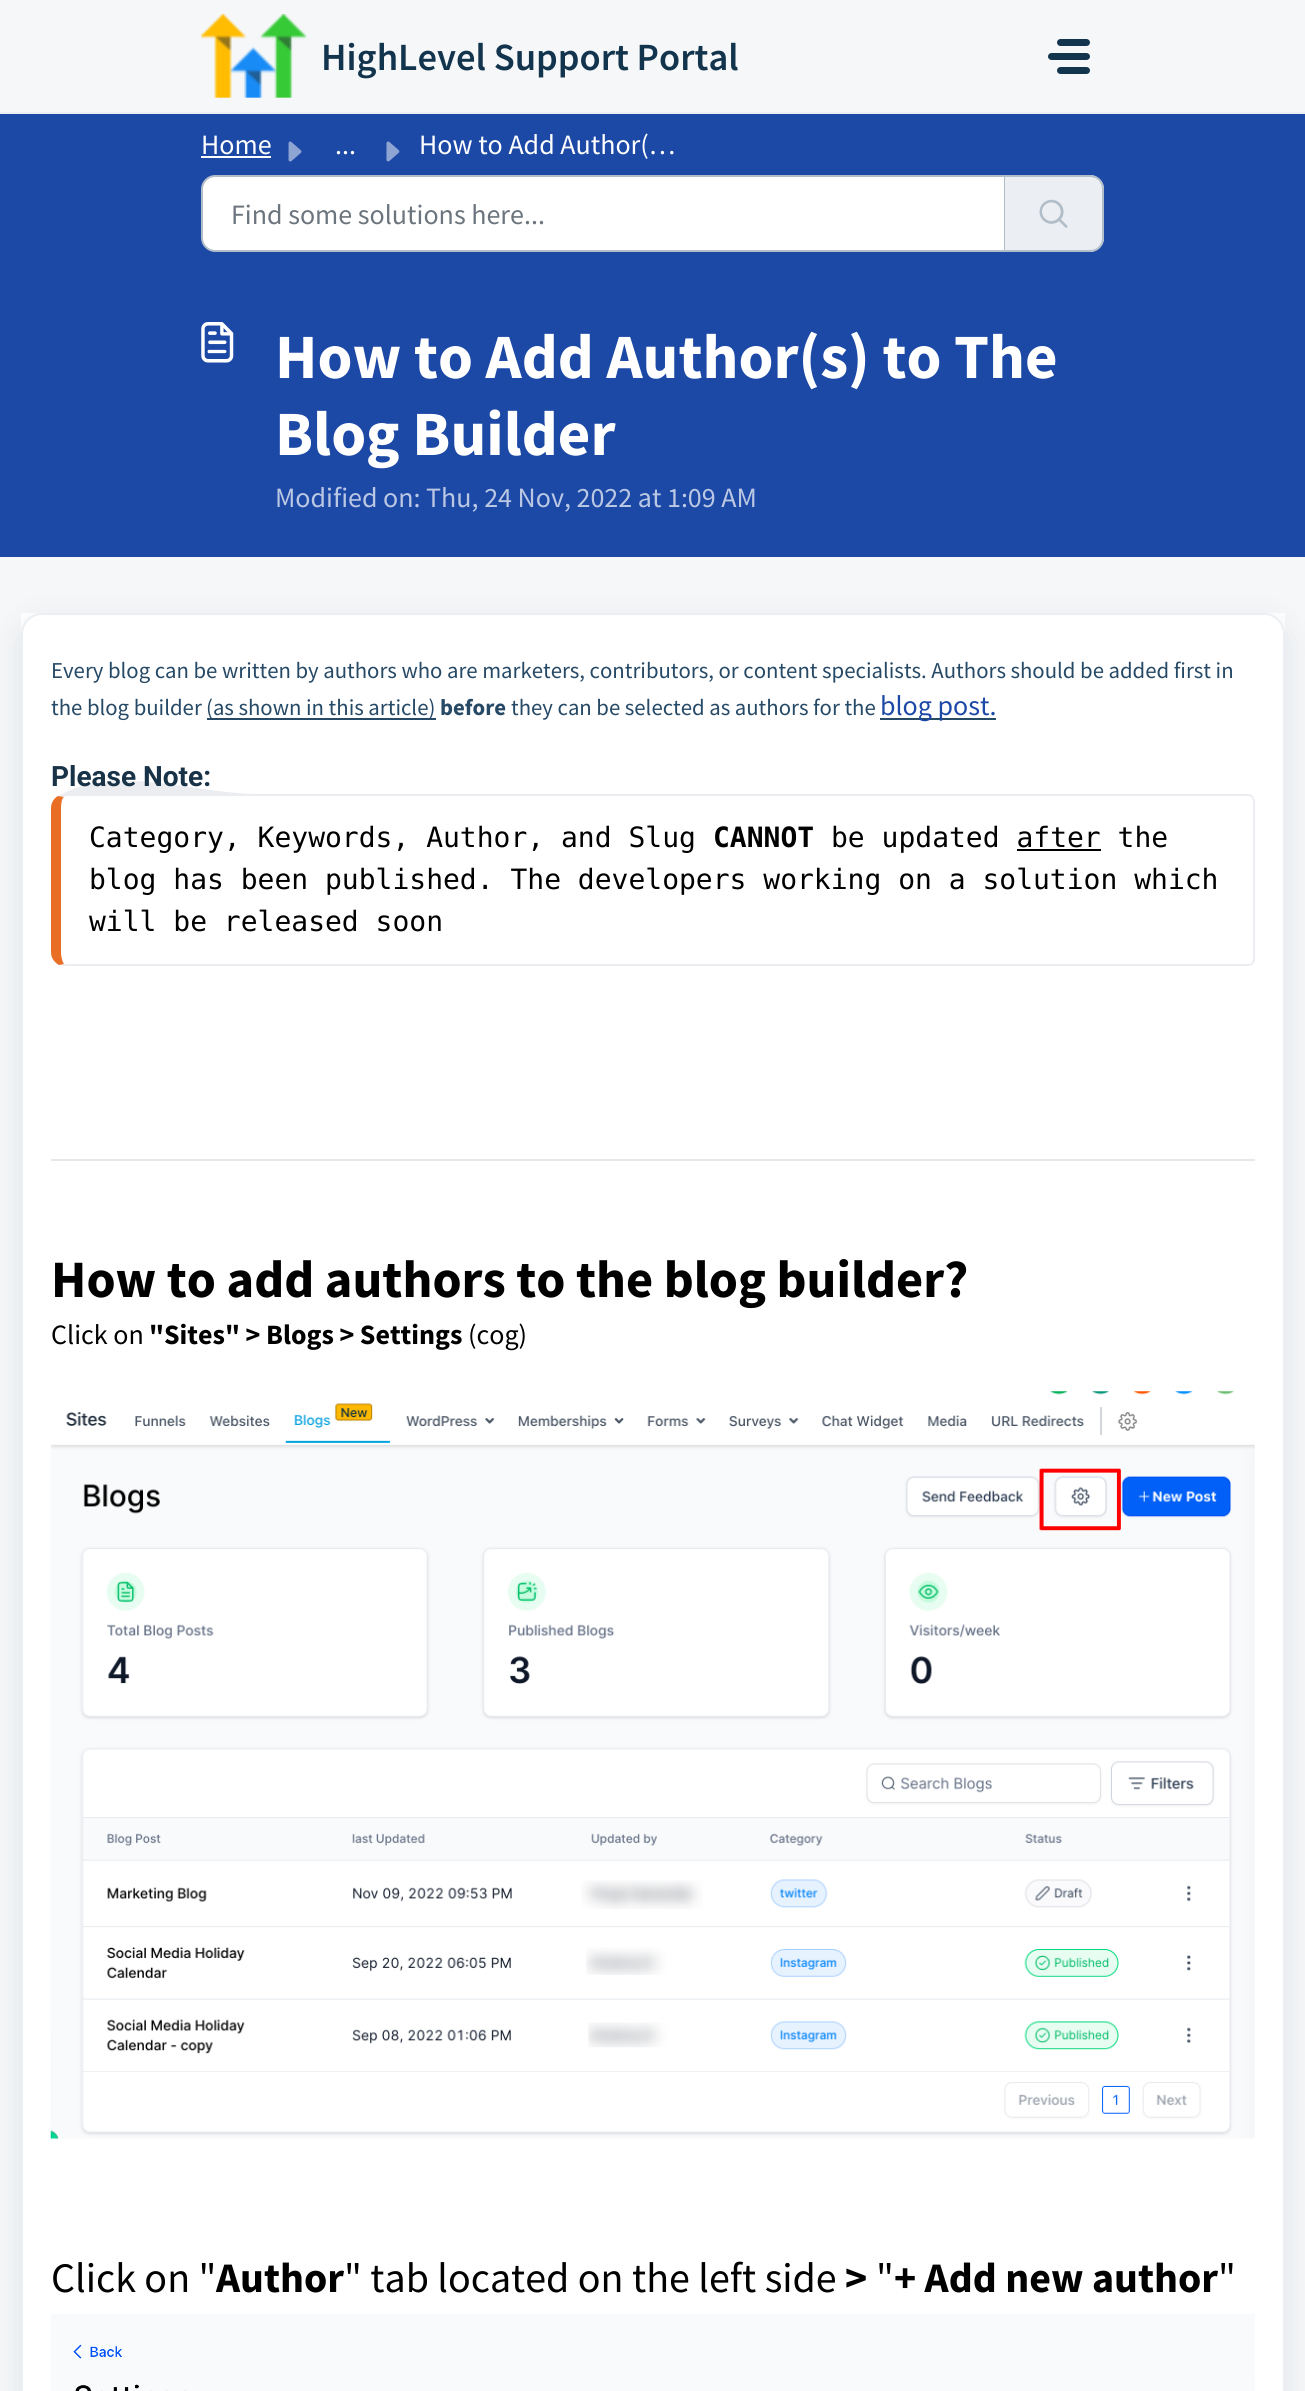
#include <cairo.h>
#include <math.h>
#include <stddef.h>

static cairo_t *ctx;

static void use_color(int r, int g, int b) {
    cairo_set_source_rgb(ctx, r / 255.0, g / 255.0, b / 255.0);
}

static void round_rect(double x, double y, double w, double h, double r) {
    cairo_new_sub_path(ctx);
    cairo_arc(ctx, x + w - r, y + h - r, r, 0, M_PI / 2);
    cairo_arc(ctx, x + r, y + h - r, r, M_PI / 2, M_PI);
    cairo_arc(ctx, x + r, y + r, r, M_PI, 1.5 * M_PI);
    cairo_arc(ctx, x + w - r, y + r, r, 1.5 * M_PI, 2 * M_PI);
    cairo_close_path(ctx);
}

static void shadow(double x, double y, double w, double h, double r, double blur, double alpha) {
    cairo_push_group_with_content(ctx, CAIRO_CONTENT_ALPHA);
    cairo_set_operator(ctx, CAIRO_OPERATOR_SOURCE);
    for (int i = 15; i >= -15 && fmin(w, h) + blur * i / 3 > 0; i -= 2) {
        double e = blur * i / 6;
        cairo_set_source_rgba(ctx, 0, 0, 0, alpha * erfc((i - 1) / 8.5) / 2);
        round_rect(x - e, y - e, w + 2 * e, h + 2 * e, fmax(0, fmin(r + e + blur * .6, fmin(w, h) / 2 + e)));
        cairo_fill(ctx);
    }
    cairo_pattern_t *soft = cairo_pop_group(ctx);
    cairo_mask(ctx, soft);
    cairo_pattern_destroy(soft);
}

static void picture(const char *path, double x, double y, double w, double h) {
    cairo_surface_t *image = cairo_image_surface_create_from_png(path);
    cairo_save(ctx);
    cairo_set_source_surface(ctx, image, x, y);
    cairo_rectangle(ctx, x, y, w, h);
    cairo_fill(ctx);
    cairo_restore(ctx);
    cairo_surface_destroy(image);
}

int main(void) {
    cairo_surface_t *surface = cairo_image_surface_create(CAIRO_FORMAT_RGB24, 1305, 2391);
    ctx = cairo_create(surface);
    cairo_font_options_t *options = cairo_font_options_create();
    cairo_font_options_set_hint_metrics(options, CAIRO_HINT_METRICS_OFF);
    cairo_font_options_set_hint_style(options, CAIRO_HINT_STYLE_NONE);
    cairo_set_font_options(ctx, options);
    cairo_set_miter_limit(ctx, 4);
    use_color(245, 247, 249);
    cairo_paint(ctx);
    use_color(235, 239, 243);
    cairo_rectangle(ctx, 0, 112, 1305, 2);
    cairo_fill(ctx);
    picture("img1.png", 201, 14, 106, 84);
    cairo_select_font_face(ctx, "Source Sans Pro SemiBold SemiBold", CAIRO_FONT_SLANT_NORMAL, CAIRO_FONT_WEIGHT_NORMAL);
    cairo_set_font_size(ctx, 38.5);
    use_color(18, 52, 77);
    cairo_move_to(ctx, 321, 70);
    cairo_show_text(ctx, "HighLevel Support Portal");
    round_rect(1057, 39, 33, 7, 3.5);
    cairo_fill(ctx);
    round_rect(1048, 53, 42, 7, 3.5);
    cairo_fill(ctx);
    round_rect(1057, 67, 33, 7, 3.5);
    cairo_fill(ctx);
    use_color(28, 72, 166);
    cairo_rectangle(ctx, 0, 114, 1305, 443);
    cairo_fill(ctx);
    cairo_select_font_face(ctx, "Source Sans Pro", CAIRO_FONT_SLANT_NORMAL, CAIRO_FONT_WEIGHT_NORMAL);
    cairo_set_font_size(ctx, 28);
    use_color(255, 255, 255);
    cairo_move_to(ctx, 201, 154);
    cairo_show_text(ctx, "Home");
    cairo_rectangle(ctx, 201, 156, 70, 2);
    cairo_fill(ctx);
    picture("img2.png", 288, 141, 14, 21);
    cairo_move_to(ctx, 335, 154);
    cairo_show_text(ctx, "...");
    picture("img3.png", 386, 141, 14, 21);
    cairo_move_to(ctx, 419, 154);
    cairo_show_text(ctx, "How to Add Author(…");
    cairo_new_path(ctx);
    cairo_move_to(ctx, 215, 176);
    cairo_line_to(ctx, 1005, 176);
    cairo_line_to(ctx, 1005, 251);
    cairo_line_to(ctx, 215, 251);
    cairo_curve_to(ctx, 208, 251, 202, 245, 202, 238);
    cairo_line_to(ctx, 202, 189);
    cairo_curve_to(ctx, 202, 182, 208, 176, 215, 176);
    cairo_close_path(ctx);
    cairo_fill_preserve(ctx);
    use_color(177, 189, 200);
    cairo_stroke(ctx);
    use_color(108, 117, 125);
    cairo_move_to(ctx, 231, 224);
    cairo_show_text(ctx, "Find some solutions here...");
    use_color(235, 239, 243);
    cairo_new_path(ctx);
    cairo_move_to(ctx, 1005, 175);
    cairo_line_to(ctx, 1090, 175);
    cairo_curve_to(ctx, 1097.5, 175, 1104, 181.5, 1104, 189);
    cairo_line_to(ctx, 1104, 238);
    cairo_curve_to(ctx, 1104, 245.5, 1097.5, 252, 1090, 252);
    cairo_line_to(ctx, 1005, 252);
    cairo_close_path(ctx);
    cairo_fill(ctx);
    use_color(177, 189, 200);
    cairo_set_fill_rule(ctx, CAIRO_FILL_RULE_EVEN_ODD);
    cairo_new_path(ctx);
    cairo_move_to(ctx, 1004, 175);
    cairo_line_to(ctx, 1090, 175);
    cairo_curve_to(ctx, 1098, 175, 1104, 181, 1104, 189);
    cairo_line_to(ctx, 1104, 238);
    cairo_curve_to(ctx, 1104, 246, 1098, 252, 1090, 252);
    cairo_line_to(ctx, 1004, 252);
    cairo_close_path(ctx);
    cairo_move_to(ctx, 1004, 177);
    cairo_line_to(ctx, 1090, 177);
    cairo_curve_to(ctx, 1097, 177, 1102, 182, 1102, 189);
    cairo_line_to(ctx, 1102, 238);
    cairo_curve_to(ctx, 1102, 245, 1097, 250, 1090, 250);
    cairo_line_to(ctx, 1004, 250);
    cairo_close_path(ctx);
    cairo_fill(ctx);
    picture("img4.png", 1039, 199, 29, 29);
    picture("img5.png", 201, 322, 33, 41);
    cairo_select_font_face(ctx, "Source Sans Pro", CAIRO_FONT_SLANT_NORMAL, CAIRO_FONT_WEIGHT_BOLD);
    cairo_set_font_size(ctx, 63);
    use_color(255, 255, 255);
    cairo_move_to(ctx, 275, 378);
    cairo_show_text(ctx, "How to Add Author(s) to The");
    cairo_move_to(ctx, 275, 455);
    cairo_show_text(ctx, "Blog Builder");
    cairo_select_font_face(ctx, "Source Sans Pro", CAIRO_FONT_SLANT_NORMAL, CAIRO_FONT_WEIGHT_NORMAL);
    cairo_set_font_size(ctx, 28);
    use_color(187, 200, 228);
    cairo_move_to(ctx, 275, 507);
    cairo_show_text(ctx, "Modified on: Thu, 24 Nov, 2022 at 1:09 AM");
    use_color(255, 255, 255);
    cairo_rectangle(ctx, 21, 613, 1264, 1778);
    cairo_fill(ctx);
    cairo_save(ctx);
    cairo_new_path(ctx);
    cairo_move_to(ctx, 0, 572);
    cairo_line_to(ctx, 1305, 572);
    cairo_line_to(ctx, 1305, 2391);
    cairo_line_to(ctx, 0, 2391);
    cairo_close_path(ctx);
    cairo_move_to(ctx, 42, 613);
    cairo_line_to(ctx, 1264, 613);
    cairo_curve_to(ctx, 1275.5, 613, 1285, 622.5, 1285, 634);
    cairo_line_to(ctx, 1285, 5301);
    cairo_curve_to(ctx, 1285, 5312.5, 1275.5, 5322, 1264, 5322);
    cairo_line_to(ctx, 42, 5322);
    cairo_curve_to(ctx, 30.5, 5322, 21, 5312.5, 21, 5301);
    cairo_line_to(ctx, 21, 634);
    cairo_curve_to(ctx, 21, 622.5, 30.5, 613, 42, 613);
    cairo_close_path(ctx);
    cairo_clip(ctx);
    use_color(39, 49, 58);
    shadow(21, 623, 1264, 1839, 21, 16.5, 0.1);
    cairo_restore(ctx);
    round_rect(22, 614, 1262, 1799, 20);
    use_color(235, 239, 243);
    cairo_stroke(ctx);
    cairo_set_font_size(ctx, 22.75);
    use_color(38, 73, 102);
    cairo_move_to(ctx, 51, 678);
    cairo_show_text(ctx, "Every blog can be written by authors who are marketers, contributors, or content specialists. Authors should be added first in");
    cairo_move_to(ctx, 51, 715);
    cairo_show_text(ctx, "the blog builder");
    cairo_rectangle(ctx, 207, 718, 229, 2);
    cairo_fill(ctx);
    cairo_move_to(ctx, 206, 715);
    cairo_show_text(ctx, "(as shown in this article)");
    cairo_select_font_face(ctx, "Source Sans Pro", CAIRO_FONT_SLANT_NORMAL, CAIRO_FONT_WEIGHT_BOLD);
    cairo_move_to(ctx, 440, 715);
    cairo_show_text(ctx, "before");
    cairo_select_font_face(ctx, "Source Sans Pro", CAIRO_FONT_SLANT_NORMAL, CAIRO_FONT_WEIGHT_NORMAL);
    cairo_move_to(ctx, 511, 715);
    cairo_show_text(ctx, "they can be selected as authors for the");
    cairo_rectangle(ctx, 880, 718, 116, 2);
    cairo_fill(ctx);
    cairo_set_font_size(ctx, 28);
    use_color(28, 72, 166);
    cairo_move_to(ctx, 880, 715);
    cairo_show_text(ctx, "blog post.");
    use_color(235, 237, 240);
    cairo_set_fill_rule(ctx, CAIRO_FILL_RULE_WINDING);
    cairo_new_path(ctx);
    cairo_move_to(ctx, 65, 796);
    cairo_line_to(ctx, 64, 797);
    cairo_line_to(ctx, 58, 796);
    cairo_curve_to(ctx, 117, 763, 192, 794, 260, 794);
    cairo_line_to(ctx, 1250, 794);
    cairo_line_to(ctx, 1253, 796);
    cairo_line_to(ctx, 1252, 798);
    cairo_curve_to(ctx, 1251, 797, 1249, 796, 1248, 796);
    cairo_close_path(ctx);
    cairo_fill(ctx);
    cairo_select_font_face(ctx, "Roboto", CAIRO_FONT_SLANT_NORMAL, CAIRO_FONT_WEIGHT_BOLD);
    use_color(24, 50, 71);
    cairo_move_to(ctx, 51, 786);
    cairo_show_text(ctx, "Please Note:");
    use_color(235, 237, 240);
    cairo_new_path(ctx);
    cairo_move_to(ctx, 1255, 961);
    cairo_line_to(ctx, 1253, 964);
    cairo_line_to(ctx, 1251, 963);
    cairo_curve_to(ctx, 1252, 962, 1253, 961, 1253, 959);
    cairo_line_to(ctx, 1253, 802);
    cairo_curve_to(ctx, 1253, 800, 1252, 799, 1252, 798);
    cairo_line_to(ctx, 1253, 796);
    cairo_line_to(ctx, 1255, 800);
    cairo_close_path(ctx);
    cairo_fill(ctx);
    cairo_new_path(ctx);
    cairo_move_to(ctx, 65, 966);
    cairo_line_to(ctx, 1248, 966);
    cairo_curve_to(ctx, 1250, 966, 1252, 965, 1253, 964);
    cairo_line_to(ctx, 1251, 963);
    cairo_curve_to(ctx, 1251, 964, 1249, 964, 1248, 964);
    cairo_line_to(ctx, 64, 964);
    cairo_line_to(ctx, 59, 965);
    cairo_close_path(ctx);
    cairo_fill(ctx);
    use_color(232, 111, 37);
    cairo_new_path(ctx);
    cairo_move_to(ctx, 59, 965);
    cairo_curve_to(ctx, 54, 962, 51, 958, 51, 952);
    cairo_line_to(ctx, 51, 808);
    cairo_curve_to(ctx, 51, 803, 54, 798, 58, 796);
    cairo_line_to(ctx, 64, 797);
    cairo_curve_to(ctx, 62, 798, 61, 803, 61, 808);
    cairo_line_to(ctx, 61, 952);
    cairo_curve_to(ctx, 61, 958, 63, 963, 64, 964);
    cairo_close_path(ctx);
    cairo_fill(ctx);
    cairo_select_font_face(ctx, "DejaVu Sans Mono", CAIRO_FONT_SLANT_NORMAL, CAIRO_FONT_WEIGHT_NORMAL);
    use_color(0, 0, 0);
    cairo_move_to(ctx, 89, 847);
    cairo_show_text(ctx, "Category, Keywords, Author, and Slug");
    cairo_select_font_face(ctx, "DejaVu Sans Mono", CAIRO_FONT_SLANT_NORMAL, CAIRO_FONT_WEIGHT_BOLD);
    cairo_move_to(ctx, 713, 847);
    cairo_show_text(ctx, "CANNOT");
    cairo_select_font_face(ctx, "DejaVu Sans Mono", CAIRO_FONT_SLANT_NORMAL, CAIRO_FONT_WEIGHT_NORMAL);
    cairo_move_to(ctx, 831, 847);
    cairo_show_text(ctx, "be updated after the");
    cairo_rectangle(ctx, 1017, 849, 84, 2);
    cairo_fill(ctx);
    cairo_move_to(ctx, 89, 889);
    cairo_show_text(ctx, "blog has been published. The developers working on a solution which");
    cairo_move_to(ctx, 89, 931);
    cairo_show_text(ctx, "will be released soon");
    use_color(230, 232, 233);
    cairo_rectangle(ctx, 51, 1159, 1204, 2);
    cairo_fill(ctx);
    cairo_select_font_face(ctx, "Source Sans Pro", CAIRO_FONT_SLANT_NORMAL, CAIRO_FONT_WEIGHT_BOLD);
    cairo_set_font_size(ctx, 52.5);
    use_color(0, 0, 0);
    cairo_move_to(ctx, 51, 1297);
    cairo_show_text(ctx, "How to add authors to the blog builder?");
    cairo_select_font_face(ctx, "Source Sans Pro", CAIRO_FONT_SLANT_NORMAL, CAIRO_FONT_WEIGHT_NORMAL);
    cairo_set_font_size(ctx, 28);
    cairo_move_to(ctx, 51, 1344);
    cairo_show_text(ctx, "Click on");
    cairo_select_font_face(ctx, "Source Sans Pro", CAIRO_FONT_SLANT_NORMAL, CAIRO_FONT_WEIGHT_BOLD);
    cairo_move_to(ctx, 149, 1344);
    cairo_show_text(ctx, "\"Sites\" > Blogs > Settings");
    cairo_select_font_face(ctx, "Source Sans Pro", CAIRO_FONT_SLANT_NORMAL, CAIRO_FONT_WEIGHT_NORMAL);
    cairo_move_to(ctx, 468, 1344);
    cairo_show_text(ctx, "(cog)");
    picture("img6.png", 50, 1391, 1205, 748);
    cairo_set_font_size(ctx, 42);
    cairo_move_to(ctx, 51, 2292);
    cairo_show_text(ctx, "Click on \"");
    cairo_select_font_face(ctx, "Source Sans Pro", CAIRO_FONT_SLANT_NORMAL, CAIRO_FONT_WEIGHT_BOLD);
    cairo_move_to(ctx, 216, 2292);
    cairo_show_text(ctx, "Author");
    cairo_select_font_face(ctx, "Source Sans Pro", CAIRO_FONT_SLANT_NORMAL, CAIRO_FONT_WEIGHT_NORMAL);
    cairo_move_to(ctx, 344, 2292);
    cairo_show_text(ctx, "\" tab located on the left side");
    cairo_select_font_face(ctx, "Source Sans Pro", CAIRO_FONT_SLANT_NORMAL, CAIRO_FONT_WEIGHT_BOLD);
    cairo_move_to(ctx, 845, 2292);
    cairo_show_text(ctx, ">");
    cairo_select_font_face(ctx, "Source Sans Pro", CAIRO_FONT_SLANT_NORMAL, CAIRO_FONT_WEIGHT_NORMAL);
    cairo_move_to(ctx, 876, 2292);
    cairo_show_text(ctx, "\"");
    cairo_select_font_face(ctx, "Source Sans Pro", CAIRO_FONT_SLANT_NORMAL, CAIRO_FONT_WEIGHT_BOLD);
    cairo_move_to(ctx, 894, 2292);
    cairo_show_text(ctx, "+ Add new author");
    cairo_select_font_face(ctx, "Source Sans Pro", CAIRO_FONT_SLANT_NORMAL, CAIRO_FONT_WEIGHT_NORMAL);
    cairo_move_to(ctx, 1218, 2292);
    cairo_show_text(ctx, "\"");
    picture("img7.png", 51, 2314, 1204, 77);
    cairo_surface_write_to_png(surface, "result.png");
    cairo_font_options_destroy(options);
    cairo_destroy(ctx);
    cairo_surface_destroy(surface);
    return 0;
}
